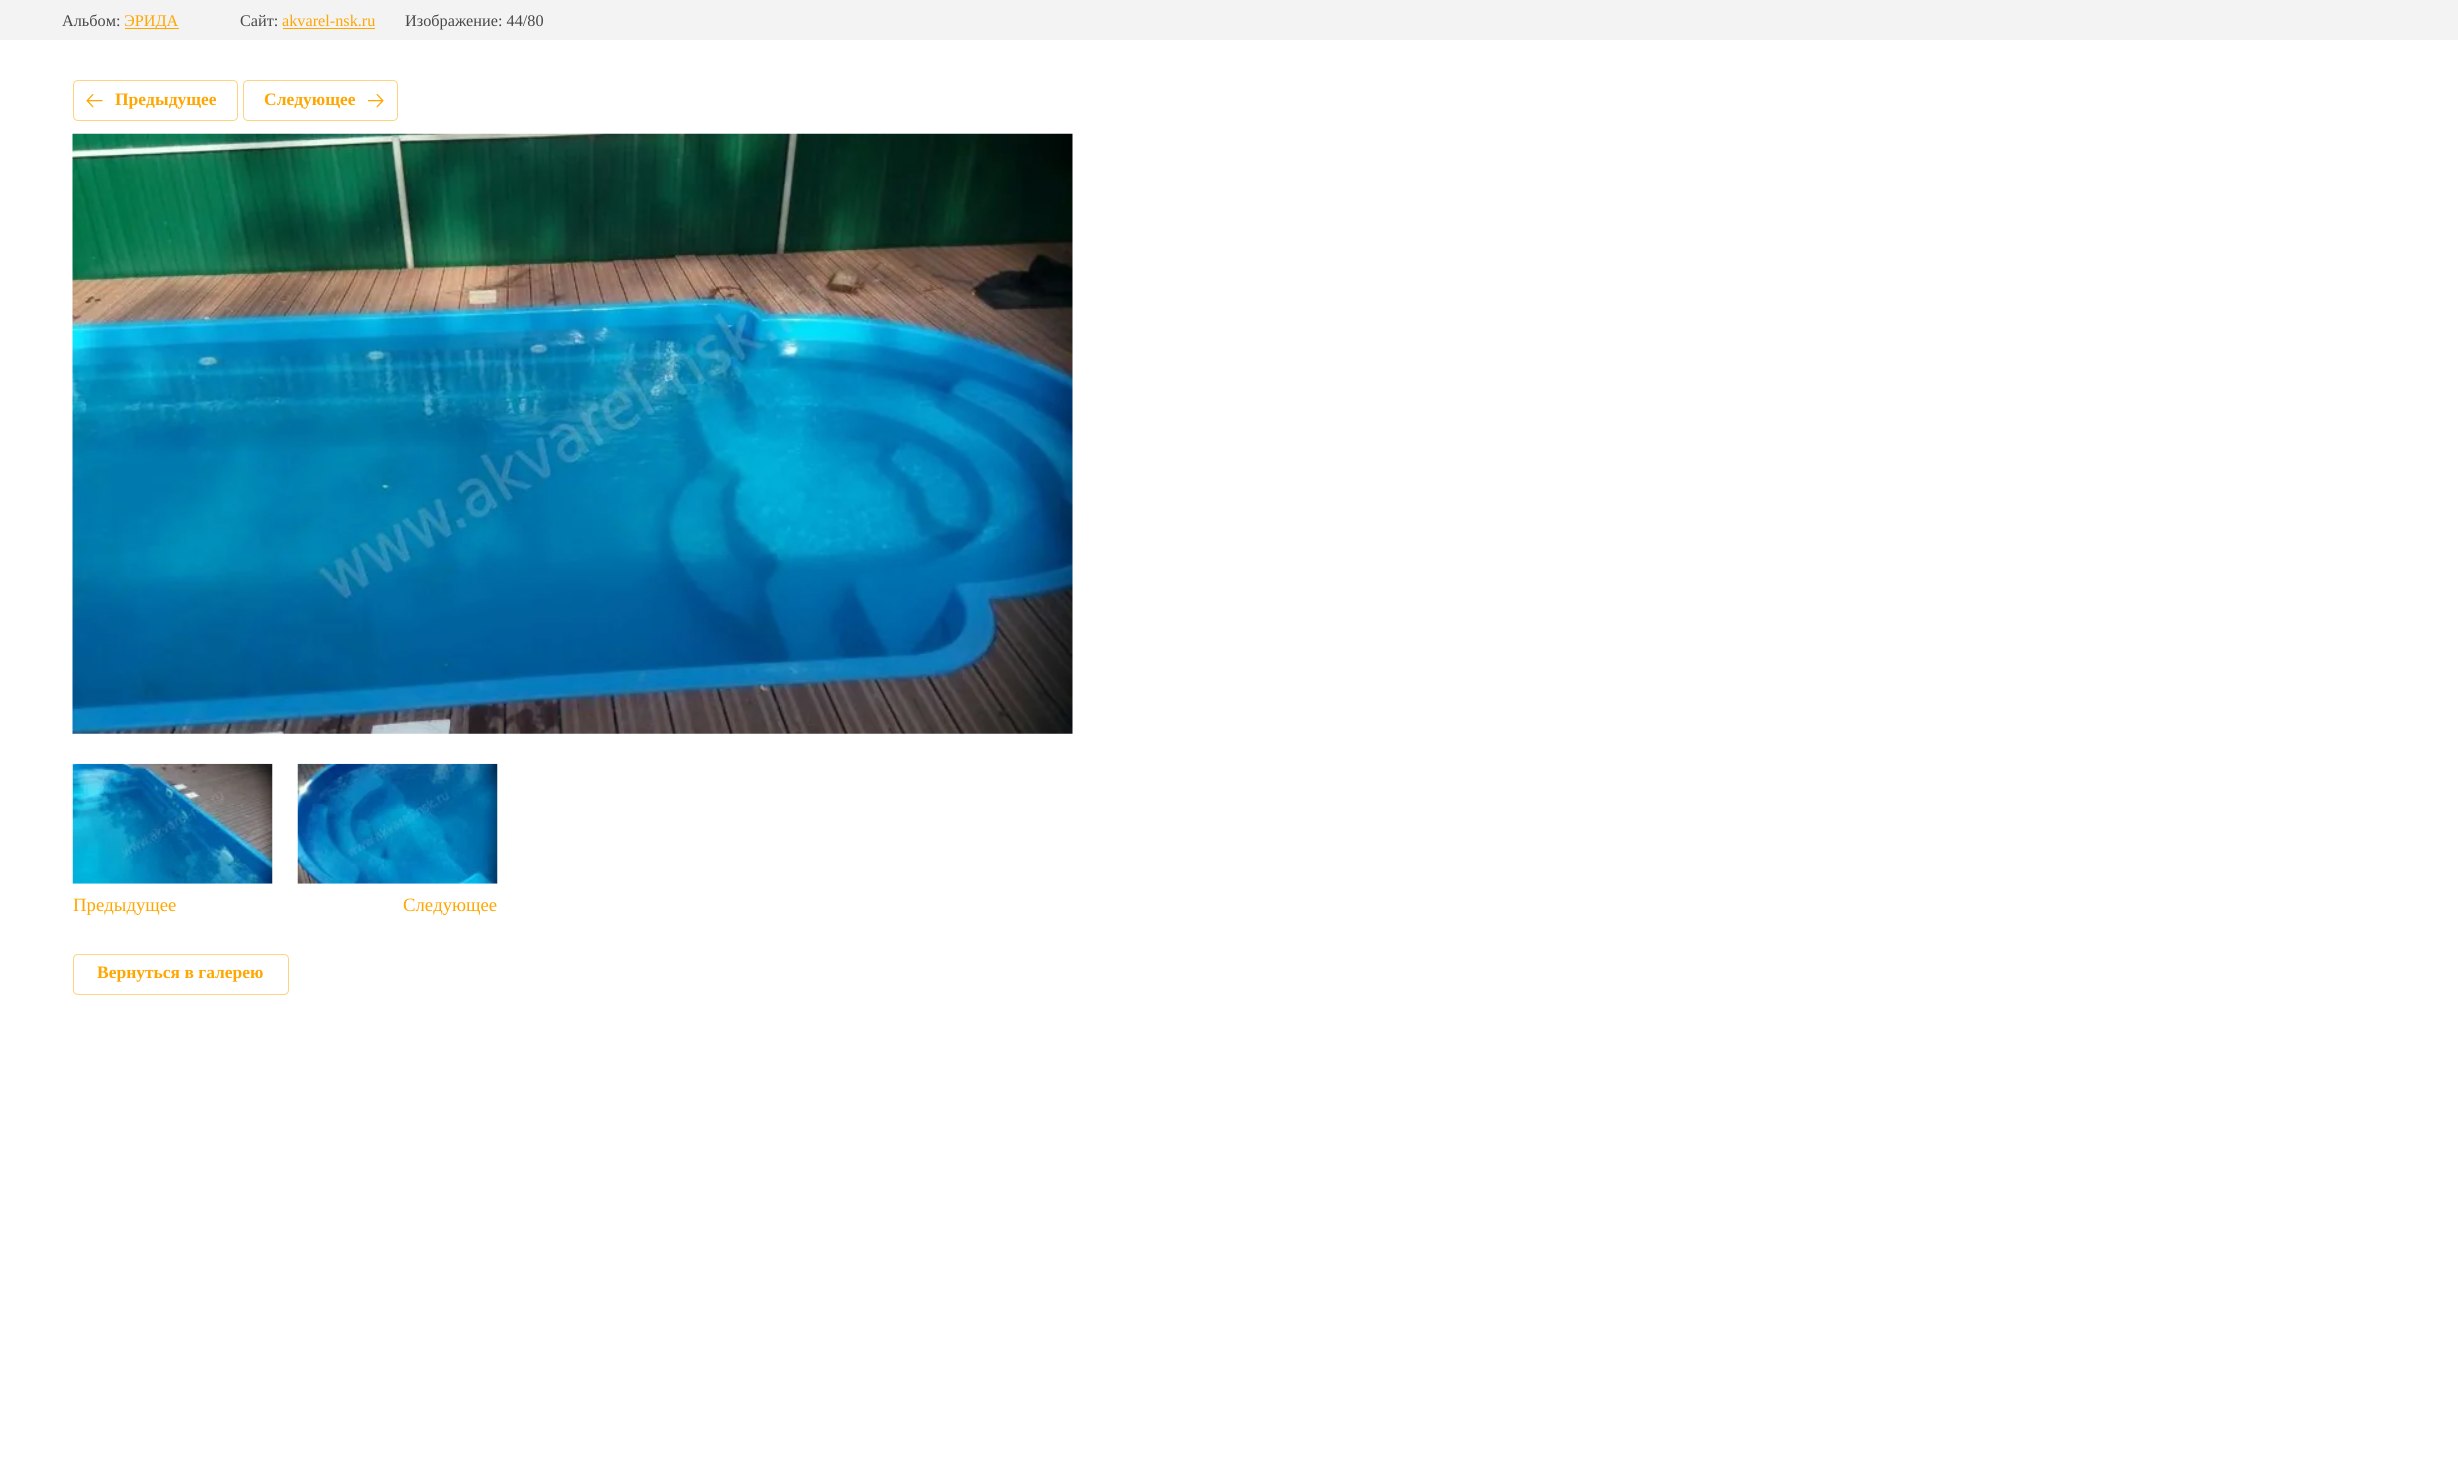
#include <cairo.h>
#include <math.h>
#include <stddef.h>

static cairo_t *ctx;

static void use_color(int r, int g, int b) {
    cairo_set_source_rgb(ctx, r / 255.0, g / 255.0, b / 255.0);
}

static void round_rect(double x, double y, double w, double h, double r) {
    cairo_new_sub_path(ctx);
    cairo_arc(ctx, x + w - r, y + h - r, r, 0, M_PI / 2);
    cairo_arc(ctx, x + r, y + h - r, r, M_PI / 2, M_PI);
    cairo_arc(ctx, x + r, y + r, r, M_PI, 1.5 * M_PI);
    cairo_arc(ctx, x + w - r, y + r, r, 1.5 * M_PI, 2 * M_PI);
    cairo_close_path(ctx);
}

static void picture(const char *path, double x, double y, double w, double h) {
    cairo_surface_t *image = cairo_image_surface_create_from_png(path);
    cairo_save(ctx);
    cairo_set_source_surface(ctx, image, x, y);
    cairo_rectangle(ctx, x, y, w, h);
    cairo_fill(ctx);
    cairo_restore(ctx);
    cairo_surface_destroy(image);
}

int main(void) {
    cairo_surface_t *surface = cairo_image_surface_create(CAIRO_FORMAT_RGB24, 2458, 1462);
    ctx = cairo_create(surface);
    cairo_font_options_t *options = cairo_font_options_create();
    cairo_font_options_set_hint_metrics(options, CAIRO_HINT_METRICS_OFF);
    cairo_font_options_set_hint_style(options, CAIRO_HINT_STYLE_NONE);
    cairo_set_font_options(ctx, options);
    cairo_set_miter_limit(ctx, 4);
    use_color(255, 255, 255);
    cairo_paint(ctx);
    use_color(243, 243, 243);
    cairo_rectangle(ctx, 0, 0, 2458, 40);
    cairo_fill(ctx);
    cairo_select_font_face(ctx, "Liberation Serif", CAIRO_FONT_SLANT_NORMAL, CAIRO_FONT_WEIGHT_NORMAL);
    cairo_set_font_size(ctx, 16.25);
    use_color(72, 72, 72);
    cairo_move_to(ctx, 62, 26);
    cairo_show_text(ctx, "Альбом:");
    use_color(255, 166, 1);
    cairo_rectangle(ctx, 125, 28, 54, 1);
    cairo_fill(ctx);
    cairo_move_to(ctx, 124, 26);
    cairo_show_text(ctx, "ЭРИДА");
    use_color(72, 72, 72);
    cairo_move_to(ctx, 240, 26);
    cairo_show_text(ctx, "Сайт:");
    use_color(255, 166, 1);
    cairo_move_to(ctx, 282, 26);
    cairo_show_text(ctx, "akvarel-nsk.ru");
    cairo_rectangle(ctx, 283, 28, 92, 1);
    cairo_fill(ctx);
    use_color(72, 72, 72);
    cairo_move_to(ctx, 405, 26);
    cairo_show_text(ctx, "Изображение: 44/80");
    round_rect(73.5, 80.5, 164, 40, 4.5);
    use_color(255, 211, 128);
    cairo_set_line_width(ctx, 1);
    cairo_stroke(ctx);
    picture("img1.png", 86, 94, 17, 14);
    cairo_select_font_face(ctx, "Liberation Serif", CAIRO_FONT_SLANT_NORMAL, CAIRO_FONT_WEIGHT_BOLD);
    cairo_set_font_size(ctx, 17.5);
    use_color(255, 166, 1);
    cairo_move_to(ctx, 115, 105);
    cairo_show_text(ctx, "Предыдущее");
    round_rect(243.5, 80.5, 154, 40, 4.5);
    use_color(255, 211, 128);
    cairo_stroke(ctx);
    use_color(255, 166, 1);
    cairo_move_to(ctx, 264, 105);
    cairo_show_text(ctx, "Следующее");
    picture("img2.png", 368, 94, 16, 14);
    picture("img3.png", 72, 133, 1001, 601);
    picture("img4.png", 72, 763, 201, 121);
    cairo_select_font_face(ctx, "Liberation Serif", CAIRO_FONT_SLANT_NORMAL, CAIRO_FONT_WEIGHT_NORMAL);
    cairo_set_font_size(ctx, 18.75);
    cairo_move_to(ctx, 73, 911);
    cairo_show_text(ctx, "Предыдущее");
    picture("img5.png", 297, 763, 201, 121);
    cairo_move_to(ctx, 403, 911);
    cairo_show_text(ctx, "Следующее");
    round_rect(73.5, 954.5, 215, 40, 4.5);
    use_color(255, 211, 128);
    cairo_stroke(ctx);
    cairo_select_font_face(ctx, "Liberation Serif", CAIRO_FONT_SLANT_NORMAL, CAIRO_FONT_WEIGHT_BOLD);
    cairo_set_font_size(ctx, 17.5);
    use_color(255, 166, 1);
    cairo_move_to(ctx, 97, 978);
    cairo_show_text(ctx, "Вернуться в галерею");
    cairo_surface_write_to_png(surface, "result.png");
    cairo_font_options_destroy(options);
    cairo_destroy(ctx);
    cairo_surface_destroy(surface);
    return 0;
}
